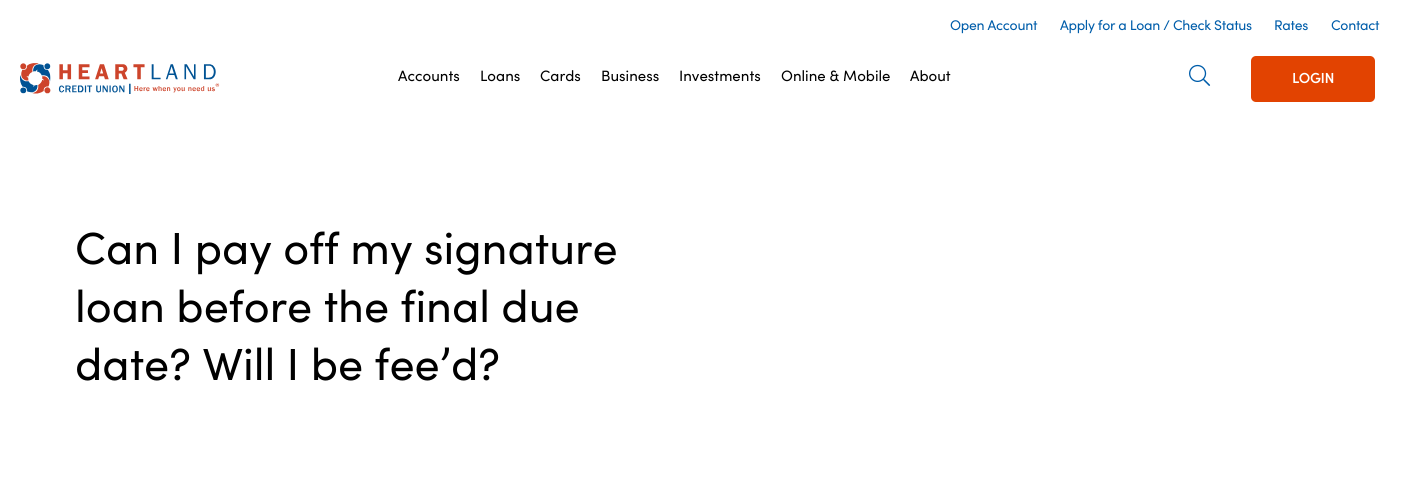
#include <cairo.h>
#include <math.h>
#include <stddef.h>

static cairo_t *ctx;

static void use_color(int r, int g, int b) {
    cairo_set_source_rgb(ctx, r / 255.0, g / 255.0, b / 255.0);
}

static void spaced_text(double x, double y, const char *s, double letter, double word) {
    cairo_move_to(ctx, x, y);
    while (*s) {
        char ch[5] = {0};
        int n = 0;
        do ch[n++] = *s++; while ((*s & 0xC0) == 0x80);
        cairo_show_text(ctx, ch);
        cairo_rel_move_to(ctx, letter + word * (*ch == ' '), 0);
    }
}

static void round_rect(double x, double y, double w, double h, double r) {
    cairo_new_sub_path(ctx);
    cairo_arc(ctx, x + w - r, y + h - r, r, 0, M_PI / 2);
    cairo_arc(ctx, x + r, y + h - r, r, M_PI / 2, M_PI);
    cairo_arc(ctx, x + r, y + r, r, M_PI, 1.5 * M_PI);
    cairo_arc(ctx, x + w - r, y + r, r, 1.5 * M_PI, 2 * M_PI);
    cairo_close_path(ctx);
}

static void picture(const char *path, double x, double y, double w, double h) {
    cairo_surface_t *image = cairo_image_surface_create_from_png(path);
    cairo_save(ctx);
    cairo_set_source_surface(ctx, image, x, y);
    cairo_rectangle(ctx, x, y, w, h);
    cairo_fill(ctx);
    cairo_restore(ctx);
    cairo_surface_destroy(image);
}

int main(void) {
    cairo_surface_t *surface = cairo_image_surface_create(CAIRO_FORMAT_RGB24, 1409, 503);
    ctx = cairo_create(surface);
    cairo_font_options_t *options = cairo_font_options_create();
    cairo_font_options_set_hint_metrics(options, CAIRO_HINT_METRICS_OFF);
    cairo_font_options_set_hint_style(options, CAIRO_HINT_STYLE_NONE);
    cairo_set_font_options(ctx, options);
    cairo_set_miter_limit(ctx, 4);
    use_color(255, 255, 255);
    cairo_paint(ctx);
    cairo_select_font_face(ctx, "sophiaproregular", CAIRO_FONT_SLANT_NORMAL, CAIRO_FONT_WEIGHT_NORMAL);
    cairo_set_font_size(ctx, 14);
    use_color(0, 93, 170);
    spaced_text(950, 30, "Open Account", -0.3, 0);
    spaced_text(1060, 30, "Apply for a Loan / Check Status", -0.3, 0);
    spaced_text(1274, 30, "Rates", -0.3, 0);
    spaced_text(1331, 30, "Contact", -0.3, 0);
    picture("img1.png", 20, 63, 200, 31);
    cairo_set_font_size(ctx, 15);
    use_color(0, 0, 0);
    cairo_move_to(ctx, 398, 81);
    cairo_show_text(ctx, "Accounts");
    cairo_move_to(ctx, 480, 81);
    cairo_show_text(ctx, "Loans");
    cairo_move_to(ctx, 540, 81);
    cairo_show_text(ctx, "Cards");
    cairo_move_to(ctx, 601, 81);
    cairo_show_text(ctx, "Business");
    cairo_move_to(ctx, 679, 81);
    cairo_show_text(ctx, "Investments");
    cairo_move_to(ctx, 781, 81);
    cairo_show_text(ctx, "Online & Mobile");
    cairo_move_to(ctx, 910, 81);
    cairo_show_text(ctx, "About");
    picture("img2.png", 1189, 64, 22, 22);
    use_color(226, 67, 1);
    round_rect(1251, 56, 124, 46, 5);
    cairo_fill(ctx);
    cairo_select_font_face(ctx, "sophiaproregular", CAIRO_FONT_SLANT_NORMAL, CAIRO_FONT_WEIGHT_BOLD);
    cairo_set_font_size(ctx, 14);
    use_color(255, 255, 255);
    cairo_move_to(ctx, 1292, 83);
    cairo_show_text(ctx, "LOGIN");
    cairo_select_font_face(ctx, "sophiaproregular", CAIRO_FONT_SLANT_NORMAL, CAIRO_FONT_WEIGHT_NORMAL);
    cairo_set_font_size(ctx, 45);
    use_color(0, 0, 0);
    cairo_move_to(ctx, 75, 264);
    cairo_show_text(ctx, "Can I pay off my signature");
    cairo_move_to(ctx, 75, 322);
    cairo_show_text(ctx, "loan before the final due");
    cairo_move_to(ctx, 75, 380);
    cairo_show_text(ctx, "date? Will I be fee’d?");
    cairo_surface_write_to_png(surface, "result.png");
    cairo_font_options_destroy(options);
    cairo_destroy(ctx);
    cairo_surface_destroy(surface);
    return 0;
}
